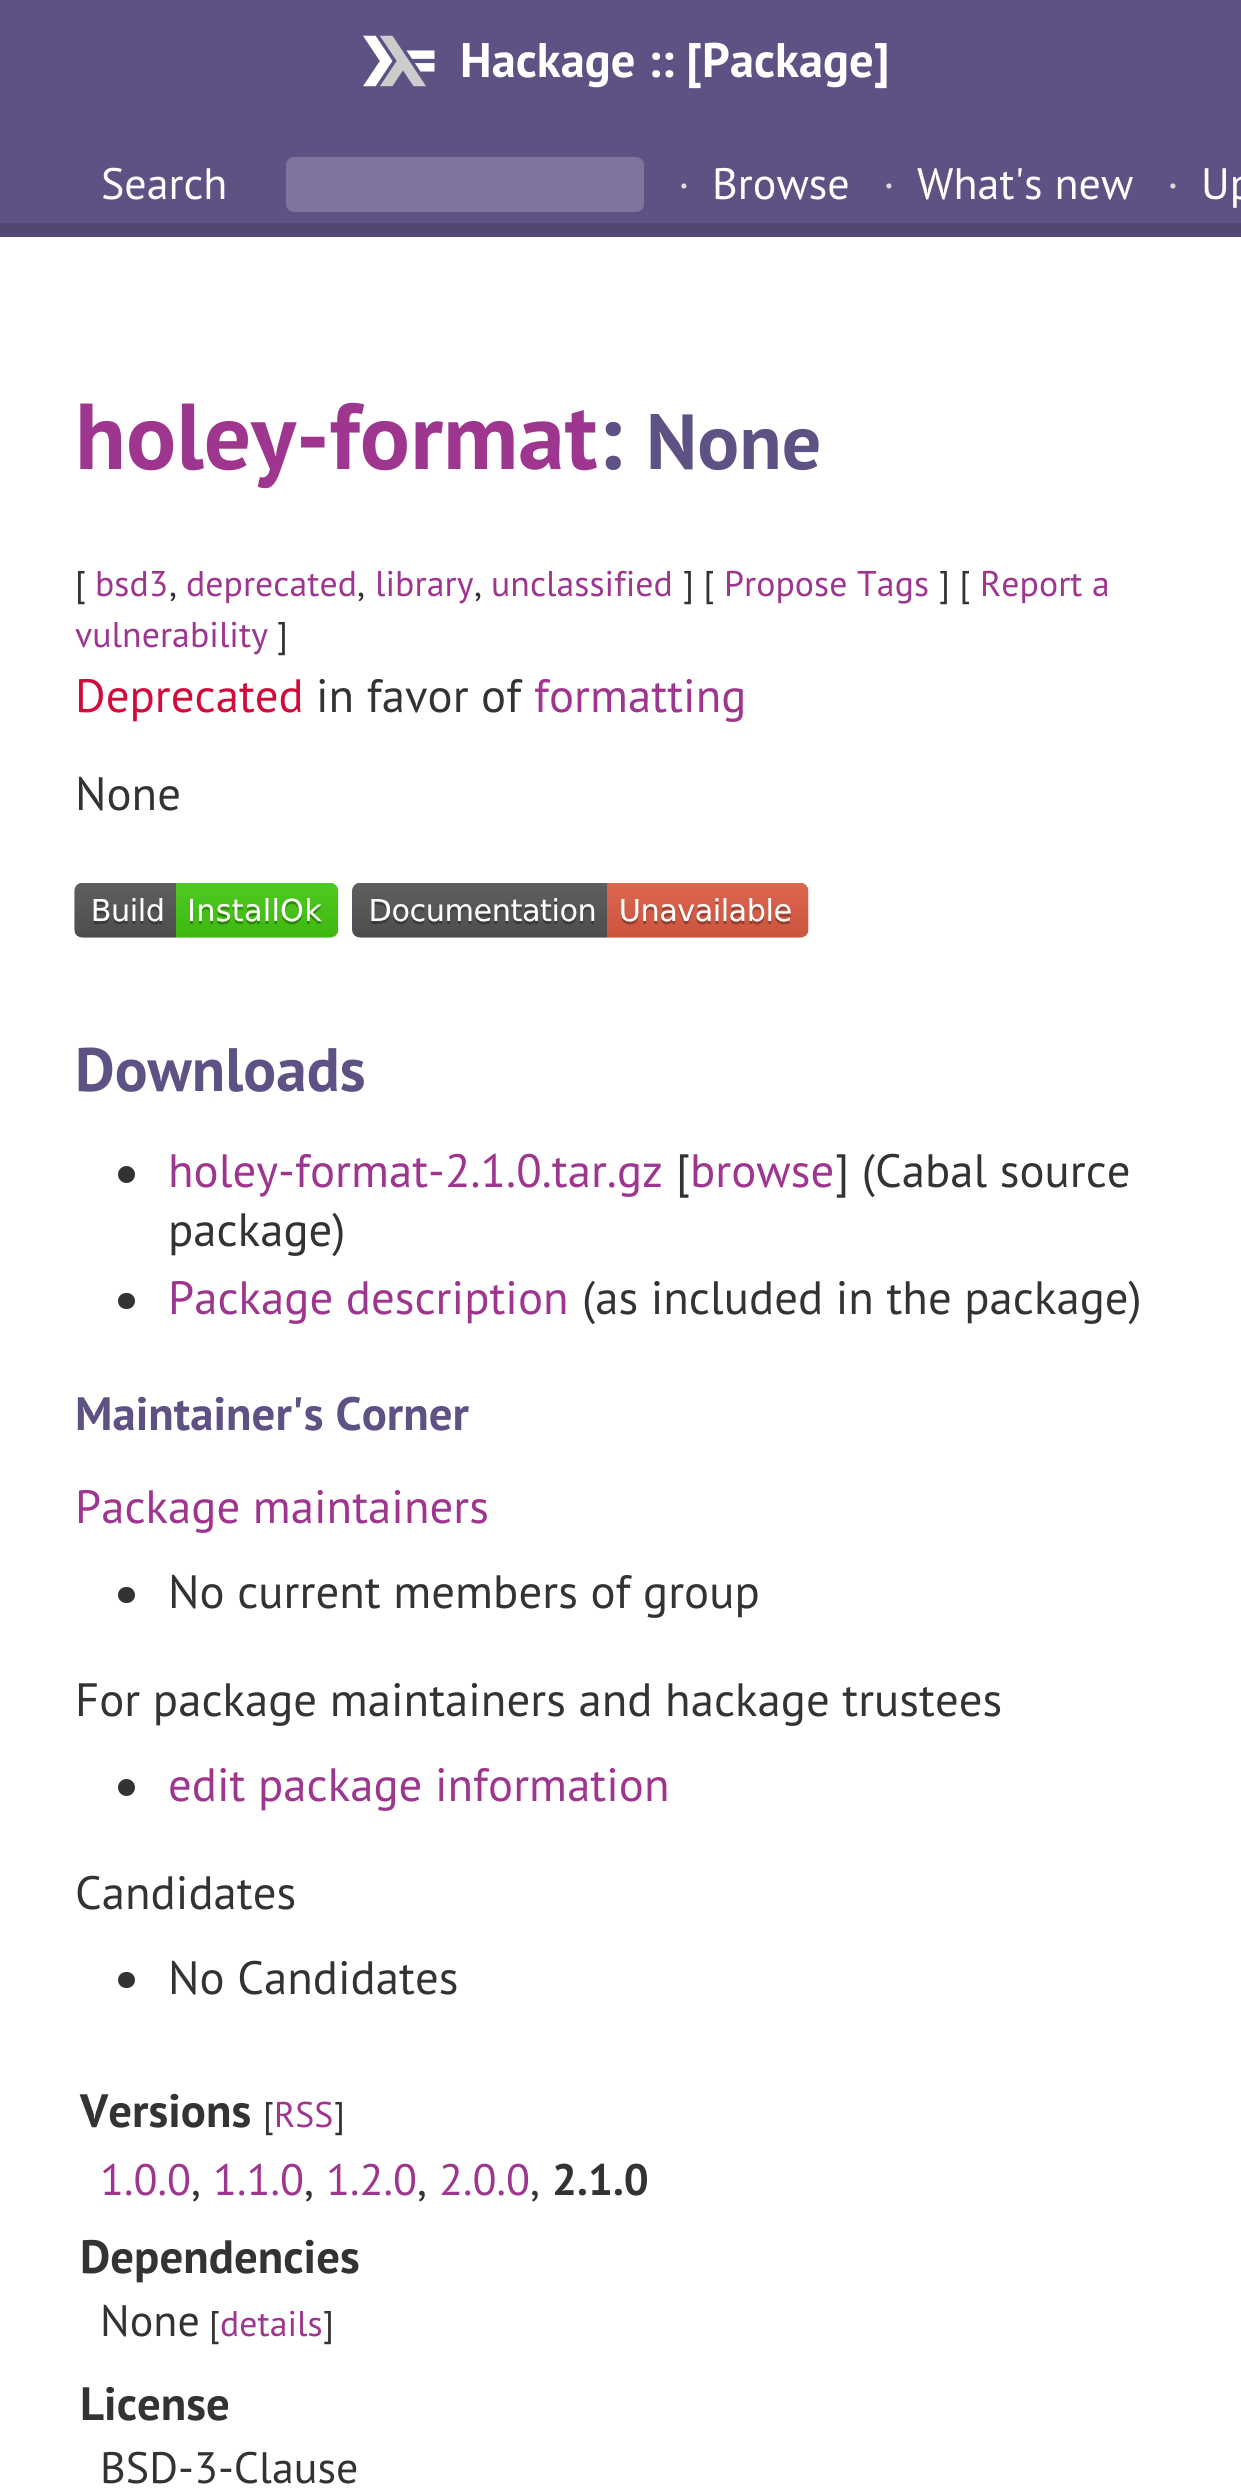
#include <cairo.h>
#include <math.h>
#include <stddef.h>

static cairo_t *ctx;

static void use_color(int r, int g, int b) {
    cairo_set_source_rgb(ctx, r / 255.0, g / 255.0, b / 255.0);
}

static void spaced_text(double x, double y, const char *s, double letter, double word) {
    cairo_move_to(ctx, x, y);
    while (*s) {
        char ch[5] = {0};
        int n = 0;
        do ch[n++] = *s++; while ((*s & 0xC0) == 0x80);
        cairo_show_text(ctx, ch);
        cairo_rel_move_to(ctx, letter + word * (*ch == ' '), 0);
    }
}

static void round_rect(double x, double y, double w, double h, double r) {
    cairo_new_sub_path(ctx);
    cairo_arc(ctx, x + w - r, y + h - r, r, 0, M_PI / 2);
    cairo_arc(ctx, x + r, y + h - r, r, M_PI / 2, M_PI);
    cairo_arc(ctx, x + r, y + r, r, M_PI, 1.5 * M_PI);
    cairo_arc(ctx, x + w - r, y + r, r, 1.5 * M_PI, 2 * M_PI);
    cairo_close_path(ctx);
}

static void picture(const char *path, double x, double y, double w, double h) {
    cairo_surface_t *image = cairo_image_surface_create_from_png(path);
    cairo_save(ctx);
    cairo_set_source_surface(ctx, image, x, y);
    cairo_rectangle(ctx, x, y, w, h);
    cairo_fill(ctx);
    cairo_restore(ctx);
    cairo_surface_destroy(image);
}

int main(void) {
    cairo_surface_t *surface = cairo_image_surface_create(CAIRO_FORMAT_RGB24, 1241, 2492);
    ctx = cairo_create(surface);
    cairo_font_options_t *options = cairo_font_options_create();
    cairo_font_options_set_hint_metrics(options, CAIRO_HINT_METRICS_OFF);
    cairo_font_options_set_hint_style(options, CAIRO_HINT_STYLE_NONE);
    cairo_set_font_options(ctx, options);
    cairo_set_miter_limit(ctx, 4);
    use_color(255, 255, 255);
    cairo_paint(ctx);
    use_color(94, 81, 132);
    cairo_rectangle(ctx, 0, 0, 1241, 223);
    cairo_fill(ctx);
    use_color(82, 70, 115);
    cairo_rectangle(ctx, 0, 223, 1241, 14);
    cairo_fill(ctx);
    picture("img1.png", 363, 35, 72, 52);
    cairo_select_font_face(ctx, "PT Sans", CAIRO_FONT_SLANT_NORMAL, CAIRO_FONT_WEIGHT_BOLD);
    cairo_set_font_size(ctx, 48.5);
    use_color(255, 255, 255);
    spaced_text(460, 77, "Hackage :: [Package]", 0.05, 0);
    cairo_select_font_face(ctx, "PT Sans", CAIRO_FONT_SLANT_NORMAL, CAIRO_FONT_WEIGHT_NORMAL);
    cairo_set_font_size(ctx, 44);
    cairo_move_to(ctx, 101, 199);
    cairo_show_text(ctx, "Search");
    use_color(126, 116, 157);
    round_rect(286, 157, 358, 55, 8);
    cairo_fill(ctx);
    use_color(221, 221, 221);
    spaced_text(678, 199, "·", 0.05, 0);
    use_color(255, 255, 255);
    spaced_text(712, 199, "Browse", 0.05, 0);
    use_color(221, 221, 221);
    spaced_text(883, 199, "·", 0.05, 0);
    use_color(255, 255, 255);
    spaced_text(917, 199, "What's new", 0.05, 0);
    use_color(221, 221, 221);
    spaced_text(1167, 199, "·", 0.05, 0);
    use_color(255, 255, 255);
    spaced_text(1201, 199, "Up", 0.05, 0);
    cairo_select_font_face(ctx, "PT Sans", CAIRO_FONT_SLANT_NORMAL, CAIRO_FONT_WEIGHT_BOLD);
    cairo_set_font_size(ctx, 93.5);
    use_color(158, 53, 143);
    spaced_text(75, 469, "holey-format", 0.05, 0);
    use_color(94, 81, 132);
    spaced_text(597, 469, ":", 0.05, 0);
    cairo_set_font_size(ctx, 78);
    spaced_text(646, 469, "None", 0.05, 0);
    cairo_select_font_face(ctx, "PT Sans", CAIRO_FONT_SLANT_NORMAL, CAIRO_FONT_WEIGHT_NORMAL);
    cairo_set_font_size(ctx, 35.75);
    use_color(51, 51, 51);
    spaced_text(75, 596, "[", 0.05, 0);
    use_color(158, 53, 143);
    spaced_text(95, 596, "bsd3", 0.05, 0);
    use_color(51, 51, 51);
    spaced_text(169, 596, ",", 0.05, 0);
    use_color(158, 53, 143);
    spaced_text(186, 596, "deprecated", 0.05, 0);
    use_color(51, 51, 51);
    spaced_text(357, 596, ",", 0.05, 0);
    use_color(158, 53, 143);
    spaced_text(375, 596, "library", 0.05, 0);
    use_color(51, 51, 51);
    spaced_text(474, 596, ",", 0.05, 0);
    use_color(158, 53, 143);
    spaced_text(491, 596, "unclassified", 0.05, 0);
    use_color(51, 51, 51);
    spaced_text(683, 596, "] [", 0.05, 0);
    use_color(158, 53, 143);
    spaced_text(724, 596, "Propose Tags", 0.05, 0);
    use_color(51, 51, 51);
    spaced_text(939, 596, "] [", 0.05, 0);
    use_color(158, 53, 143);
    spaced_text(980, 596, "Report a", 0.05, 0);
    spaced_text(75, 647, "vulnerability", 0.05, 0);
    use_color(51, 51, 51);
    spaced_text(277, 647, "]", 0.05, 0);
    cairo_set_font_size(ctx, 46.75);
    use_color(208, 11, 60);
    spaced_text(75, 712, "Deprecated", 0.05, 0);
    use_color(51, 51, 51);
    spaced_text(316, 712, "in favor of", 0.05, 0);
    use_color(158, 53, 143);
    spaced_text(534, 712, "formatting", 0.05, 0);
    use_color(51, 51, 51);
    spaced_text(75, 810, "None", 0.05, 0);
    picture("img2.png", 74, 883, 264, 55);
    picture("img3.png", 352, 883, 457, 55);
    cairo_select_font_face(ctx, "PT Sans", CAIRO_FONT_SLANT_NORMAL, CAIRO_FONT_WEIGHT_BOLD);
    cairo_set_font_size(ctx, 61.25);
    use_color(94, 81, 132);
    spaced_text(75, 1091, "Downloads", 0.05, 0);
    use_color(51, 51, 51);
    cairo_new_path(ctx);
    cairo_arc(ctx, 126.5, 1174.5, 8.5, 0, 2 * M_PI);
    cairo_fill(ctx);
    cairo_select_font_face(ctx, "PT Sans", CAIRO_FONT_SLANT_NORMAL, CAIRO_FONT_WEIGHT_NORMAL);
    cairo_set_font_size(ctx, 46.75);
    use_color(158, 53, 143);
    spaced_text(168, 1187, "holey-format-2.1.0.tar.gz", 0.05, 0);
    use_color(51, 51, 51);
    spaced_text(676, 1187, "[", 0.05, 0);
    use_color(158, 53, 143);
    spaced_text(690, 1187, "browse", 0.05, 0);
    use_color(51, 51, 51);
    spaced_text(835, 1187, "] (Cabal source", 0.05, 0);
    spaced_text(168, 1246, "package)", 0.05, 0);
    round_rect(118, 1293, 17, 16, 8);
    cairo_fill(ctx);
    use_color(158, 53, 143);
    spaced_text(168, 1314, "Package description", 0.05, 0);
    use_color(51, 51, 51);
    spaced_text(582, 1314, "(as included in the package)", 0.05, 0);
    cairo_select_font_face(ctx, "PT Sans", CAIRO_FONT_SLANT_NORMAL, CAIRO_FONT_WEIGHT_BOLD);
    use_color(94, 81, 132);
    spaced_text(75, 1430, "Maintainer's Corner", 0.05, 0);
    cairo_select_font_face(ctx, "PT Sans", CAIRO_FONT_SLANT_NORMAL, CAIRO_FONT_WEIGHT_NORMAL);
    use_color(158, 53, 143);
    spaced_text(75, 1523, "Package maintainers", 0.05, 0);
    use_color(51, 51, 51);
    round_rect(118, 1587, 17, 16, 8);
    cairo_fill(ctx);
    spaced_text(168, 1608, "No current members of group", 0.05, 0);
    spaced_text(75, 1716, "For package maintainers and hackage trustees", 0.05, 0);
    cairo_new_path(ctx);
    cairo_arc(ctx, 126.5, 1787.5, 8.5, 0, 2 * M_PI);
    cairo_fill(ctx);
    use_color(158, 53, 143);
    spaced_text(168, 1801, "edit package information", 0.05, 0);
    use_color(51, 51, 51);
    spaced_text(75, 1909, "Candidates", 0.05, 0);
    round_rect(118, 1972, 17, 16, 8);
    cairo_fill(ctx);
    spaced_text(168, 1994, "No Candidates", 0.05, 0);
    cairo_select_font_face(ctx, "PT Sans", CAIRO_FONT_SLANT_NORMAL, CAIRO_FONT_WEIGHT_BOLD);
    spaced_text(80, 2127, "Versions", 0.05, 0);
    cairo_select_font_face(ctx, "PT Sans", CAIRO_FONT_SLANT_NORMAL, CAIRO_FONT_WEIGHT_NORMAL);
    cairo_set_font_size(ctx, 35.75);
    spaced_text(263, 2127, "[", 0.05, 0);
    use_color(158, 53, 143);
    spaced_text(274, 2127, "RSS", 0.05, 0);
    use_color(51, 51, 51);
    spaced_text(334, 2127, "]", 0.05, 0);
    cairo_set_font_size(ctx, 44);
    use_color(158, 53, 143);
    spaced_text(100, 2195, "1.0.0", 0.05, 0);
    use_color(51, 51, 51);
    spaced_text(191, 2195, ",", 0.05, 0);
    use_color(158, 53, 143);
    spaced_text(213, 2195, "1.1.0", 0.05, 0);
    use_color(51, 51, 51);
    spaced_text(304, 2195, ",", 0.05, 0);
    use_color(158, 53, 143);
    spaced_text(326, 2195, "1.2.0", 0.05, 0);
    use_color(51, 51, 51);
    spaced_text(417, 2195, ",", 0.05, 0);
    use_color(158, 53, 143);
    spaced_text(439, 2195, "2.0.0", 0.05, 0);
    use_color(51, 51, 51);
    spaced_text(530, 2195, ",", 0.05, 0);
    cairo_select_font_face(ctx, "PT Sans", CAIRO_FONT_SLANT_NORMAL, CAIRO_FONT_WEIGHT_BOLD);
    spaced_text(552, 2195, "2.1.0", 0.05, 0);
    cairo_set_font_size(ctx, 46.75);
    spaced_text(80, 2273, "Dependencies", 0.05, 0);
    cairo_select_font_face(ctx, "PT Sans", CAIRO_FONT_SLANT_NORMAL, CAIRO_FONT_WEIGHT_NORMAL);
    cairo_set_font_size(ctx, 44);
    spaced_text(100, 2336, "None", 0.05, 0);
    cairo_set_font_size(ctx, 35.75);
    spaced_text(209, 2336, "[", 0.05, 0);
    use_color(158, 53, 143);
    spaced_text(220, 2336, "details", 0.05, 0);
    use_color(51, 51, 51);
    spaced_text(323, 2336, "]", 0.05, 0);
    cairo_select_font_face(ctx, "PT Sans", CAIRO_FONT_SLANT_NORMAL, CAIRO_FONT_WEIGHT_BOLD);
    cairo_set_font_size(ctx, 46.75);
    spaced_text(80, 2420, "License", 0.05, 0);
    cairo_select_font_face(ctx, "PT Sans", CAIRO_FONT_SLANT_NORMAL, CAIRO_FONT_WEIGHT_NORMAL);
    cairo_set_font_size(ctx, 44);
    spaced_text(100, 2483, "BSD-3-Clause", 0.05, 0);
    cairo_surface_write_to_png(surface, "result.png");
    cairo_font_options_destroy(options);
    cairo_destroy(ctx);
    cairo_surface_destroy(surface);
    return 0;
}
